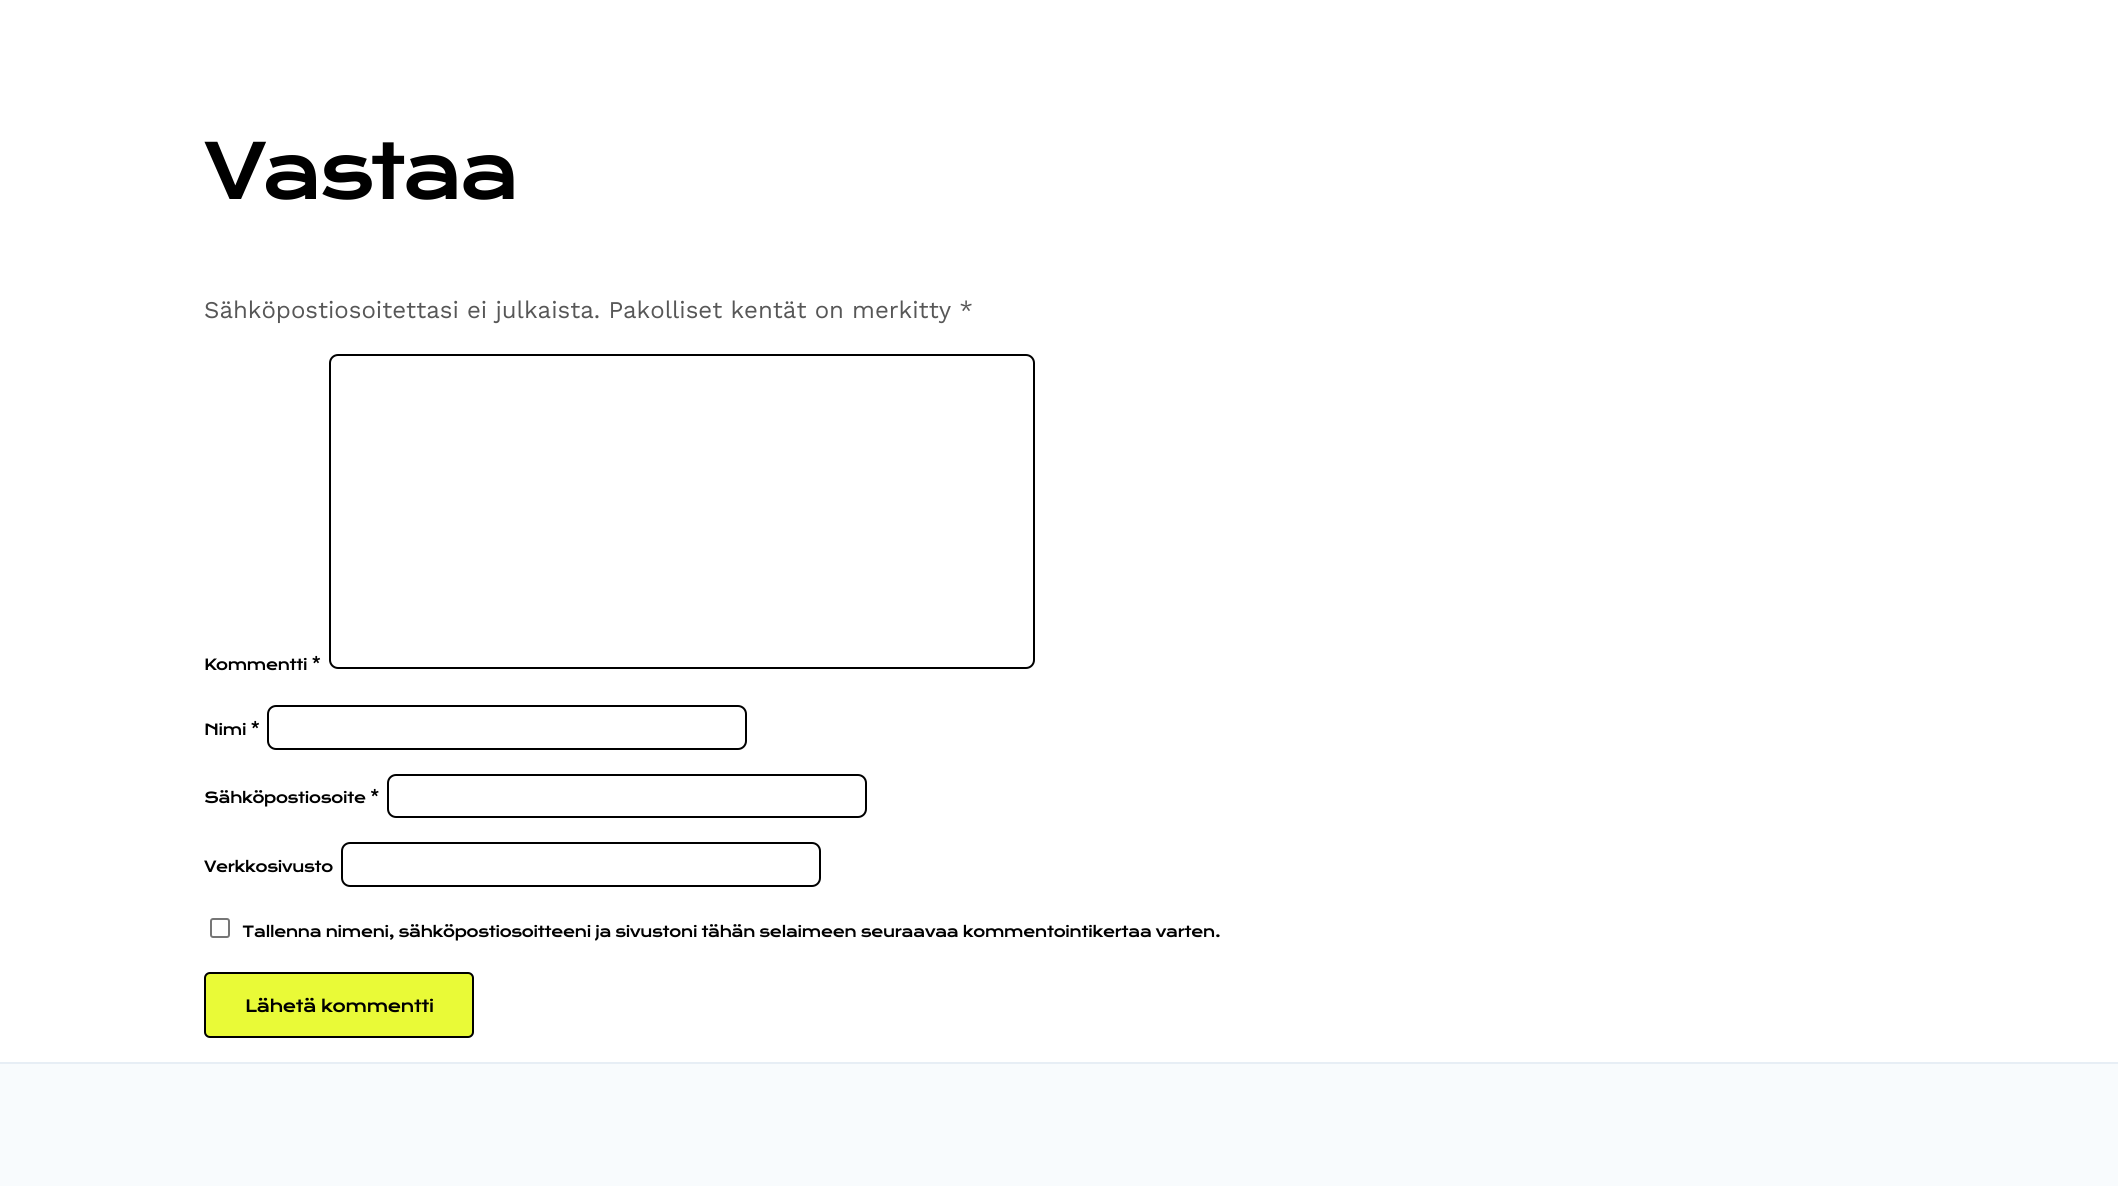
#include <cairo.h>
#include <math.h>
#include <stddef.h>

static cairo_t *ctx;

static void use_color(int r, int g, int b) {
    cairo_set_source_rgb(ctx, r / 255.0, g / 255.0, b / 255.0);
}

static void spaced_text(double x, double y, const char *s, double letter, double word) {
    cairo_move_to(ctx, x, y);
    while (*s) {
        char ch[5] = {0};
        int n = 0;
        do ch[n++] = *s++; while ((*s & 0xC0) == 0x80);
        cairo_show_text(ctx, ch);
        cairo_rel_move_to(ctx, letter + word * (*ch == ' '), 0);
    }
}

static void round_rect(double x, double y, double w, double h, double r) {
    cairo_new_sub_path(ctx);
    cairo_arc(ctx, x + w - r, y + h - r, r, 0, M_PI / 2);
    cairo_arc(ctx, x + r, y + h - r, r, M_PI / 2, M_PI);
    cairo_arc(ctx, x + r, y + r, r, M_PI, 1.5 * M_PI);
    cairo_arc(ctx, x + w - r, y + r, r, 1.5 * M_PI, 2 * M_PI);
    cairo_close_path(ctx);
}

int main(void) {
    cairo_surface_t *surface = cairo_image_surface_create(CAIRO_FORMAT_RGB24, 2118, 1186);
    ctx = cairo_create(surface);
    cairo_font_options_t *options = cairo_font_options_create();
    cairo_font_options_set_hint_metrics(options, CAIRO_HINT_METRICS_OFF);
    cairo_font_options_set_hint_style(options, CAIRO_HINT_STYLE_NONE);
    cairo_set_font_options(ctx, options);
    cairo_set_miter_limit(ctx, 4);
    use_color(255, 255, 255);
    cairo_paint(ctx);
    cairo_select_font_face(ctx, "Krona One", CAIRO_FONT_SLANT_NORMAL, CAIRO_FONT_WEIGHT_NORMAL);
    cairo_set_font_size(ctx, 75);
    use_color(0, 0, 0);
    spaced_text(204, 199, "Vastaa", -5.25, 0);
    cairo_select_font_face(ctx, "Work Sans", CAIRO_FONT_SLANT_NORMAL, CAIRO_FONT_WEIGHT_NORMAL);
    cairo_set_font_size(ctx, 24);
    use_color(87, 87, 87);
    cairo_move_to(ctx, 204, 318);
    cairo_show_text(ctx, "Sähköpostiosoitettasi ei julkaista. Pakolliset kentät on merkitty *");
    cairo_select_font_face(ctx, "Krona One", CAIRO_FONT_SLANT_NORMAL, CAIRO_FONT_WEIGHT_NORMAL);
    cairo_set_font_size(ctx, 15);
    use_color(0, 0, 0);
    spaced_text(204, 670, "Kommentti *", -0.75, 0);
    round_rect(330, 355, 704, 313, 8);
    cairo_stroke(ctx);
    spaced_text(204, 735, "Nimi *", -0.75, 0);
    round_rect(268, 706, 478, 43, 8);
    cairo_stroke(ctx);
    spaced_text(204, 803, "Sähköpostiosoite *", -0.75, 0);
    round_rect(388, 775, 478, 42, 8);
    cairo_stroke(ctx);
    spaced_text(204, 872, "Verkkosivusto", -0.75, 0);
    round_rect(342, 843, 478, 43, 8);
    cairo_stroke(ctx);
    round_rect(211, 919, 18, 18, 2);
    use_color(118, 118, 118);
    cairo_stroke(ctx);
    use_color(0, 0, 0);
    spaced_text(242, 937, "Tallenna nimeni, sähköpostiosoitteeni ja sivustoni tähän selaimeen seuraavaa kommentointikertaa varten.", -0.75, 0);
    use_color(233, 250, 55);
    round_rect(205, 973, 268, 64, 5);
    cairo_fill_preserve(ctx);
    use_color(0, 0, 0);
    cairo_stroke(ctx);
    cairo_set_font_size(ctx, 16.5);
    spaced_text(245, 1012, "Lähetä kommentti", -0.75, 0);
    use_color(248, 251, 253);
    cairo_rectangle(ctx, 0, 1064, 2118, 122);
    cairo_fill(ctx);
    use_color(231, 238, 245);
    cairo_rectangle(ctx, 0, 1062, 2118, 2);
    cairo_fill(ctx);
    cairo_surface_write_to_png(surface, "result.png");
    cairo_font_options_destroy(options);
    cairo_destroy(ctx);
    cairo_surface_destroy(surface);
    return 0;
}
